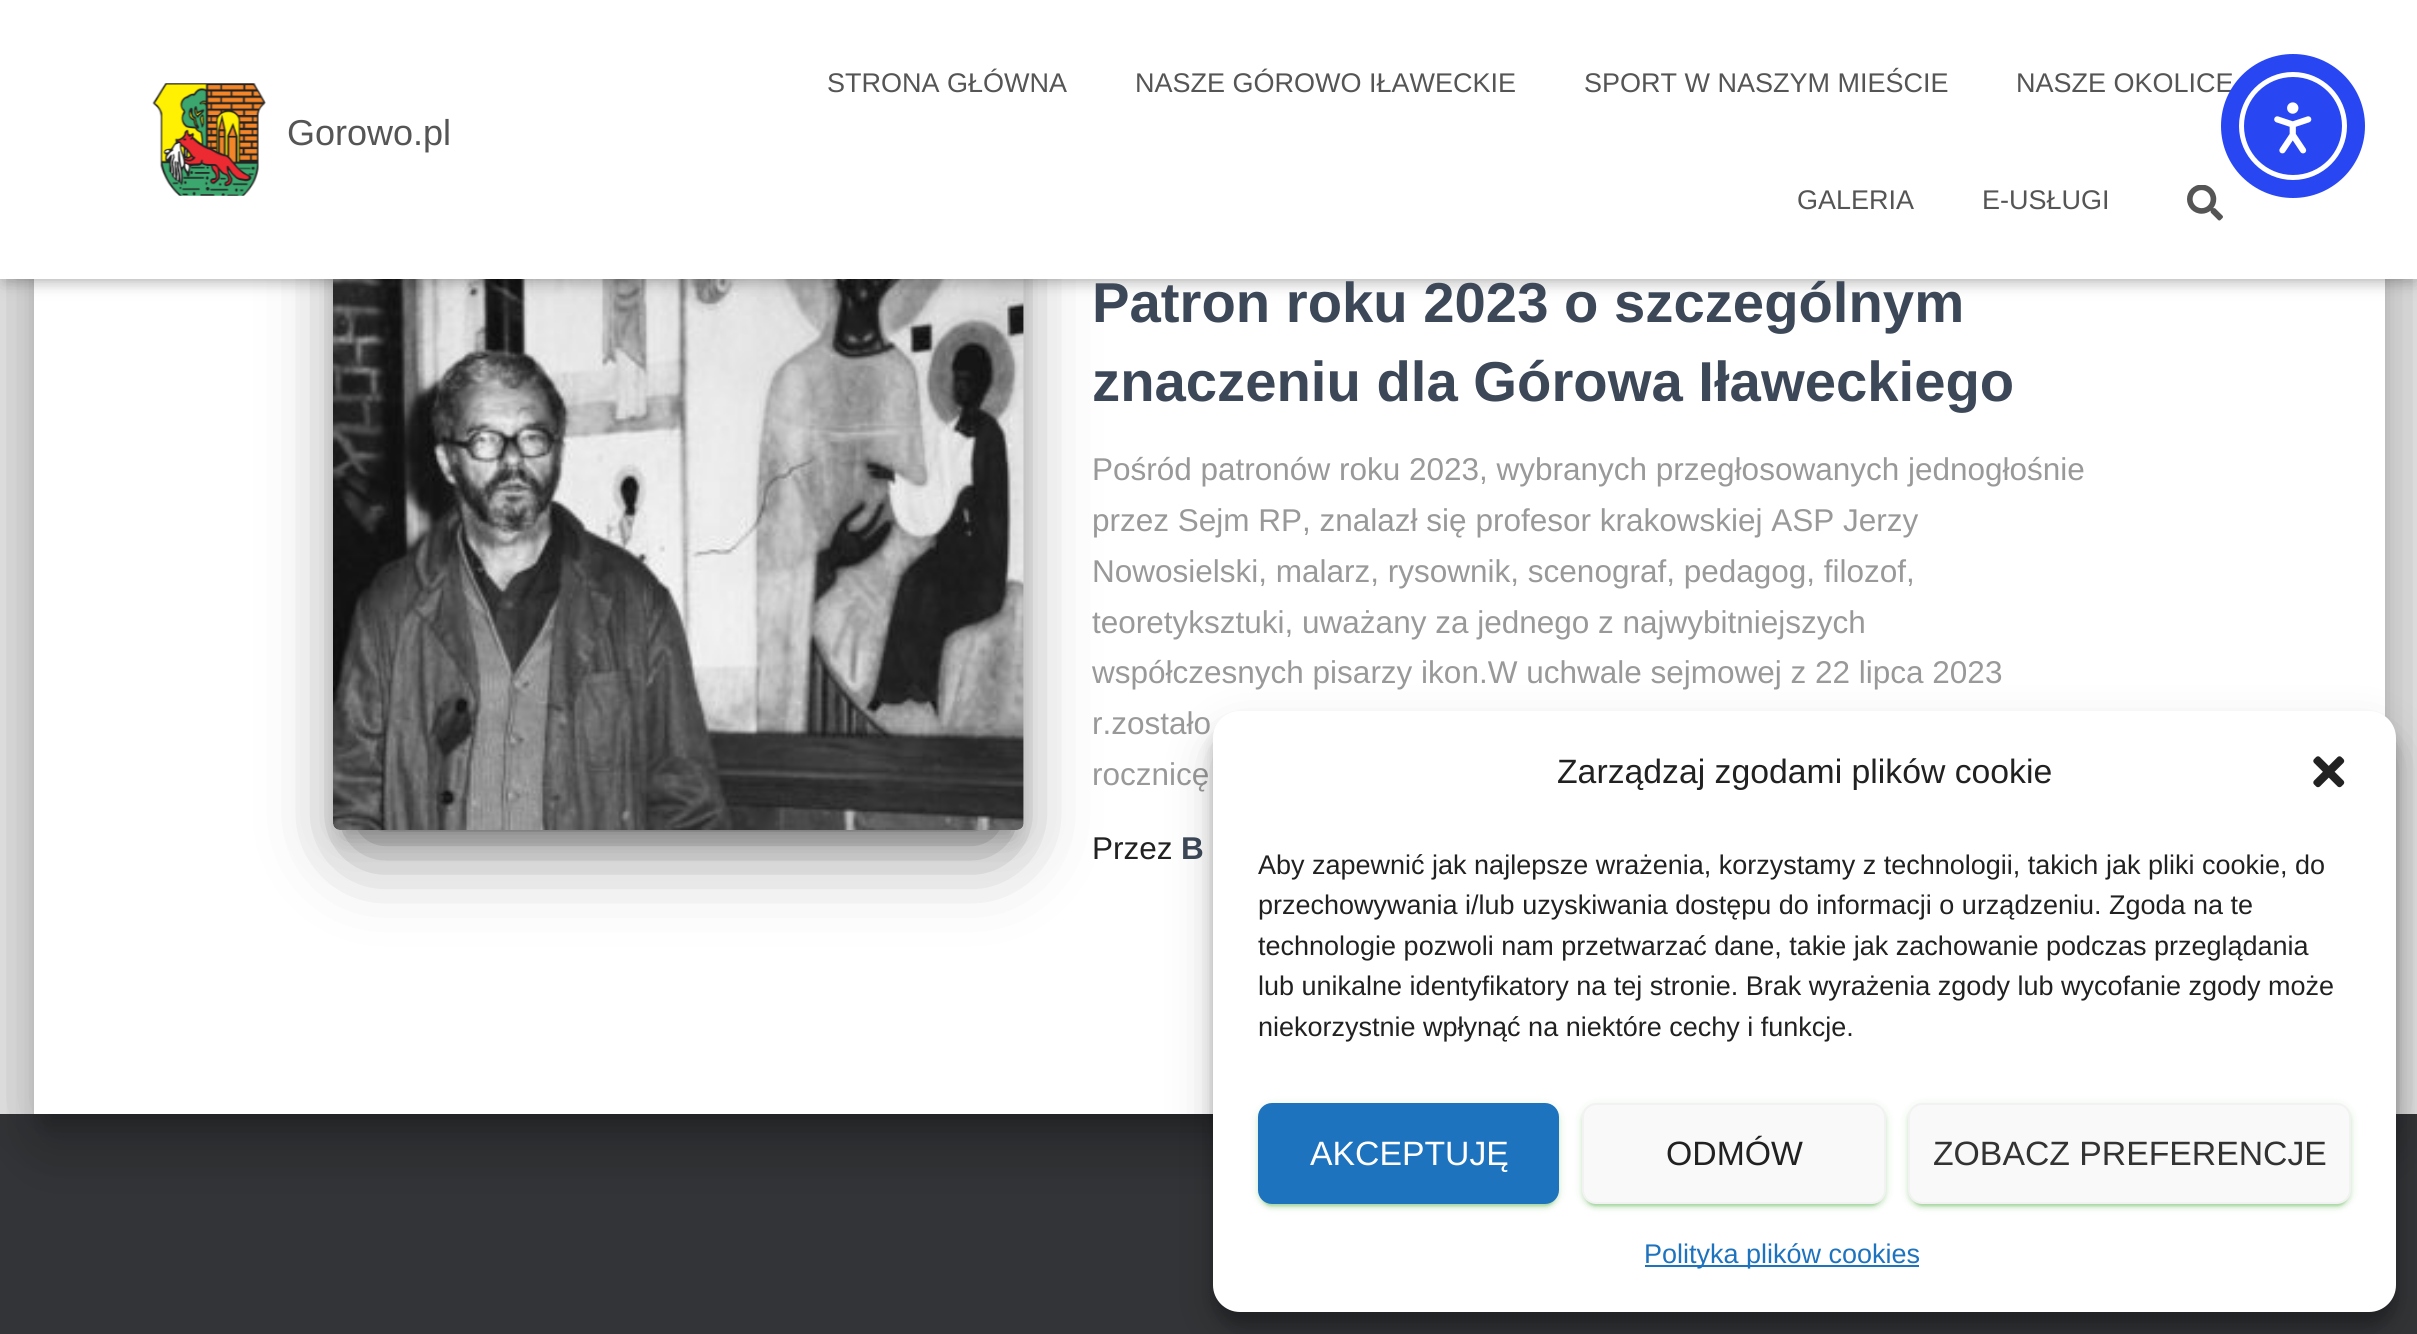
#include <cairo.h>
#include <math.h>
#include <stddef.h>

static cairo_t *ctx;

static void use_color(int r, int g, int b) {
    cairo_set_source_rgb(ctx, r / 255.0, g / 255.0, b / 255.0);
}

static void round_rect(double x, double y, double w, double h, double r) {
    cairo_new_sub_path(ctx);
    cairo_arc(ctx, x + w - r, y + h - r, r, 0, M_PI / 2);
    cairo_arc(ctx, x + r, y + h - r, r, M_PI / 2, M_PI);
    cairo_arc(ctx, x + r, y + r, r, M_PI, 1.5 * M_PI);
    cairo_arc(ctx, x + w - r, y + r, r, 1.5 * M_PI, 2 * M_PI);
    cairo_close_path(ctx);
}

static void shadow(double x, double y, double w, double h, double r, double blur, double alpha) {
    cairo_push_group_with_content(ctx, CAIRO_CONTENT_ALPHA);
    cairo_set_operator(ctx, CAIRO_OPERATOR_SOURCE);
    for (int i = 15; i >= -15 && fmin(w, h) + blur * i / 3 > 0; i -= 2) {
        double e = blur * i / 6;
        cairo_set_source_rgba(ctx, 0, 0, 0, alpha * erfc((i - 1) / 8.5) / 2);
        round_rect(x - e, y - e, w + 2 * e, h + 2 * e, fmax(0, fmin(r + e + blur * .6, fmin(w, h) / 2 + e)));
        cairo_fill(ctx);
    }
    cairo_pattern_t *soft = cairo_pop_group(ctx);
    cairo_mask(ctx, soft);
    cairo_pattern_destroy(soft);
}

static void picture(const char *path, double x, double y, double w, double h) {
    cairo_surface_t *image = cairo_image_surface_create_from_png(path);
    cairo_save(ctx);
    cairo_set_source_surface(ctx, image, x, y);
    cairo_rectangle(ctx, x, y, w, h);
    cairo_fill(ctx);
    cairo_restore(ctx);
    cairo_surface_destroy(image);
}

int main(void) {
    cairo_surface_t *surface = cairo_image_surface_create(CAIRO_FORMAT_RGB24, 2417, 1334);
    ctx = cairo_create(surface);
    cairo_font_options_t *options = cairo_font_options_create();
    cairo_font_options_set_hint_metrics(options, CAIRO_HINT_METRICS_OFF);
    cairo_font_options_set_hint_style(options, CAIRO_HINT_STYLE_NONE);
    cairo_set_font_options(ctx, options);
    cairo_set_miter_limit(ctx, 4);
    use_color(229, 229, 229);
    cairo_paint(ctx);
    use_color(50, 52, 55);
    cairo_rectangle(ctx, 0, 1114, 2417, 220);
    cairo_fill(ctx);
    use_color(0, 0, 0);
    shadow(45, 2, 2329, 1119, 2, 11, 0.2);
    shadow(23, -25, 2373, 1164, 25, 34, 0.12);
    shadow(29, 5, 2361, 1149, 18, 27, 0.14);
    use_color(255, 255, 255);
    cairo_rectangle(ctx, 34, 279, 2351, 835);
    cairo_fill(ctx);
    use_color(0, 0, 0);
    shadow(344, 216, 669, 621, 0, 11, 0.2);
    shadow(333, 196, 691, 643, 7, 28, 0.12);
    shadow(360, 250, 637, 589, 0, 43, 0.56);
    picture("img3.png", 333, 279, 691, 551);
    shadow(5, 14, 2409, 270, 0, 5.5, 0.1);
    shadow(0, 2, 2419, 279, 0, 11, 0.12);
    shadow(14, 16, 2391, 252, 0, 11, 0.42);
    use_color(255, 255, 255);
    cairo_rectangle(ctx, 0, 0, 2417, 279);
    cairo_fill(ctx);
    picture("img1.png", 152, 83, 114, 113);
    cairo_select_font_face(ctx, "Liberation Sans", CAIRO_FONT_SLANT_NORMAL, CAIRO_FONT_WEIGHT_NORMAL);
    cairo_set_font_size(ctx, 36);
    use_color(85, 85, 85);
    cairo_move_to(ctx, 287, 145);
    cairo_show_text(ctx, "Gorowo.pl");
    cairo_set_font_size(ctx, 27);
    cairo_move_to(ctx, 827, 92);
    cairo_show_text(ctx, "STRONA GŁÓWNA");
    cairo_move_to(ctx, 1135, 92);
    cairo_show_text(ctx, "NASZE GÓROWO IŁAWECKIE");
    cairo_move_to(ctx, 1584, 92);
    cairo_show_text(ctx, "SPORT W NASZYM MIEŚCIE");
    cairo_move_to(ctx, 2016, 92);
    cairo_show_text(ctx, "NASZE OKOLICE");
    cairo_move_to(ctx, 1797, 209);
    cairo_show_text(ctx, "GALERIA");
    cairo_move_to(ctx, 1982, 209);
    cairo_show_text(ctx, "E-USŁUGI");
    picture("img2.png", 2187, 185, 36, 36);
    cairo_select_font_face(ctx, "Liberation Sans", CAIRO_FONT_SLANT_NORMAL, CAIRO_FONT_WEIGHT_BOLD);
    cairo_set_font_size(ctx, 56.25);
    use_color(60, 72, 88);
    cairo_move_to(ctx, 1092, 322);
    cairo_show_text(ctx, "Patron roku 2023 o szczególnym");
    cairo_move_to(ctx, 1092, 401);
    cairo_show_text(ctx, "znaczeniu dla Górowa Iławeckiego");
    cairo_select_font_face(ctx, "Liberation Sans", CAIRO_FONT_SLANT_NORMAL, CAIRO_FONT_WEIGHT_NORMAL);
    cairo_set_font_size(ctx, 31.5);
    use_color(153, 153, 153);
    cairo_move_to(ctx, 1092, 480);
    cairo_show_text(ctx, "Pośród patronów roku 2023, wybranych przegłosowanych jednogłośnie");
    cairo_move_to(ctx, 1092, 531);
    cairo_show_text(ctx, "przez Sejm RP, znalazł się profesor krakowskiej ASP Jerzy");
    cairo_move_to(ctx, 1092, 582);
    cairo_show_text(ctx, "Nowosielski, malarz, rysownik, scenograf, pedagog, filozof,");
    cairo_move_to(ctx, 1092, 633);
    cairo_show_text(ctx, "teoretyksztuki, uważany za jednego z najwybitniejszych");
    cairo_move_to(ctx, 1092, 683);
    cairo_show_text(ctx, "współczesnych pisarzy ikon.W uchwale sejmowej z 22 lipca 2023");
    cairo_move_to(ctx, 1092, 734);
    cairo_show_text(ctx, "r.zostało");
    cairo_move_to(ctx, 1092, 785);
    cairo_show_text(ctx, "rocznicę");
    use_color(33, 33, 33);
    cairo_move_to(ctx, 1092, 859);
    cairo_show_text(ctx, "Przez");
    cairo_select_font_face(ctx, "Liberation Sans", CAIRO_FONT_SLANT_NORMAL, CAIRO_FONT_WEIGHT_BOLD);
    use_color(60, 72, 88);
    cairo_move_to(ctx, 1181, 859);
    cairo_show_text(ctx, "B");
    use_color(40, 71, 243);
    cairo_new_path(ctx);
    cairo_arc(ctx, 2293, 126, 72, 0, 2 * M_PI);
    cairo_fill(ctx);
    cairo_arc(ctx, 2293, 126, 51.5, 0, 2 * M_PI);
    use_color(255, 255, 255);
    cairo_set_line_width(ctx, 5);
    cairo_stroke(ctx);
    picture("img4.png", 2274, 102, 38, 52);
    use_color(0, 0, 0);
    shadow(1213, 725, 1183, 600, 27, 7, 0.23);
    shadow(1213, 734, 1183, 600, 27, 22.5, 0.19);
    use_color(255, 255, 255);
    round_rect(1213, 711, 1183, 601, 27);
    cairo_fill(ctx);
    cairo_select_font_face(ctx, "Liberation Sans", CAIRO_FONT_SLANT_NORMAL, CAIRO_FONT_WEIGHT_NORMAL);
    cairo_set_font_size(ctx, 33.75);
    use_color(33, 33, 33);
    cairo_move_to(ctx, 1557, 783);
    cairo_show_text(ctx, "Zarządzaj zgodami plików cookie");
    picture("img5.png", 2313, 756, 32, 32);
    cairo_set_font_size(ctx, 27);
    cairo_move_to(ctx, 1258, 874);
    cairo_show_text(ctx, "Aby zapewnić jak najlepsze wrażenia, korzystamy z technologii, takich jak pliki cookie, do");
    cairo_move_to(ctx, 1258, 914);
    cairo_show_text(ctx, "przechowywania i/lub uzyskiwania dostępu do informacji o urządzeniu. Zgoda na te");
    cairo_move_to(ctx, 1258, 955);
    cairo_show_text(ctx, "technologie pozwoli nam przetwarzać dane, takie jak zachowanie podczas przeglądania");
    cairo_move_to(ctx, 1258, 995);
    cairo_show_text(ctx, "lub unikalne identyfikatory na tej stronie. Brak wyrażenia zgody lub wycofanie zgody może");
    cairo_move_to(ctx, 1258, 1036);
    cairo_show_text(ctx, "niekorzystnie wpłynąć na niektóre cechy i funkcje.");
    use_color(23, 147, 7);
    shadow(1258, 1105, 301, 101, 14, 5.5, 0.12);
    shadow(1262, 1114, 293, 92, 9, 1, 0.2);
    shadow(1258, 1107, 301, 101, 14, 2, 0.14);
    use_color(30, 115, 190);
    round_rect(1259, 1104, 299, 99, 13);
    cairo_fill_preserve(ctx);
    cairo_set_line_width(ctx, 2);
    cairo_stroke(ctx);
    cairo_set_font_size(ctx, 33.75);
    use_color(255, 255, 255);
    cairo_move_to(ctx, 1310, 1165);
    cairo_show_text(ctx, "AKCEPTUJĘ");
    use_color(23, 147, 7);
    shadow(1582, 1105, 304, 101, 14, 5.5, 0.12);
    shadow(1586, 1114, 295, 92, 9, 1, 0.2);
    shadow(1582, 1107, 304, 101, 14, 2, 0.14);
    use_color(249, 249, 249);
    round_rect(1583, 1104, 302, 99, 13);
    cairo_fill_preserve(ctx);
    use_color(242, 242, 242);
    cairo_stroke(ctx);
    use_color(33, 33, 33);
    cairo_move_to(ctx, 1666, 1165);
    cairo_show_text(ctx, "ODMÓW");
    use_color(23, 147, 7);
    shadow(1908, 1105, 443, 101, 14, 5.5, 0.12);
    shadow(1913, 1114, 434, 92, 9, 1, 0.2);
    shadow(1908, 1107, 443, 101, 14, 2, 0.14);
    use_color(249, 249, 249);
    round_rect(1909, 1104, 441, 99, 13);
    cairo_fill_preserve(ctx);
    use_color(242, 242, 242);
    cairo_stroke(ctx);
    use_color(51, 51, 51);
    cairo_move_to(ctx, 1933, 1165);
    cairo_show_text(ctx, "ZOBACZ PREFERENCJE");
    use_color(30, 115, 190);
    cairo_rectangle(ctx, 1645, 1265, 274, 2);
    cairo_fill(ctx);
    cairo_set_font_size(ctx, 27);
    cairo_move_to(ctx, 1644, 1263);
    cairo_show_text(ctx, "Polityka plików cookies");
    cairo_surface_write_to_png(surface, "result.png");
    cairo_font_options_destroy(options);
    cairo_destroy(ctx);
    cairo_surface_destroy(surface);
    return 0;
}
